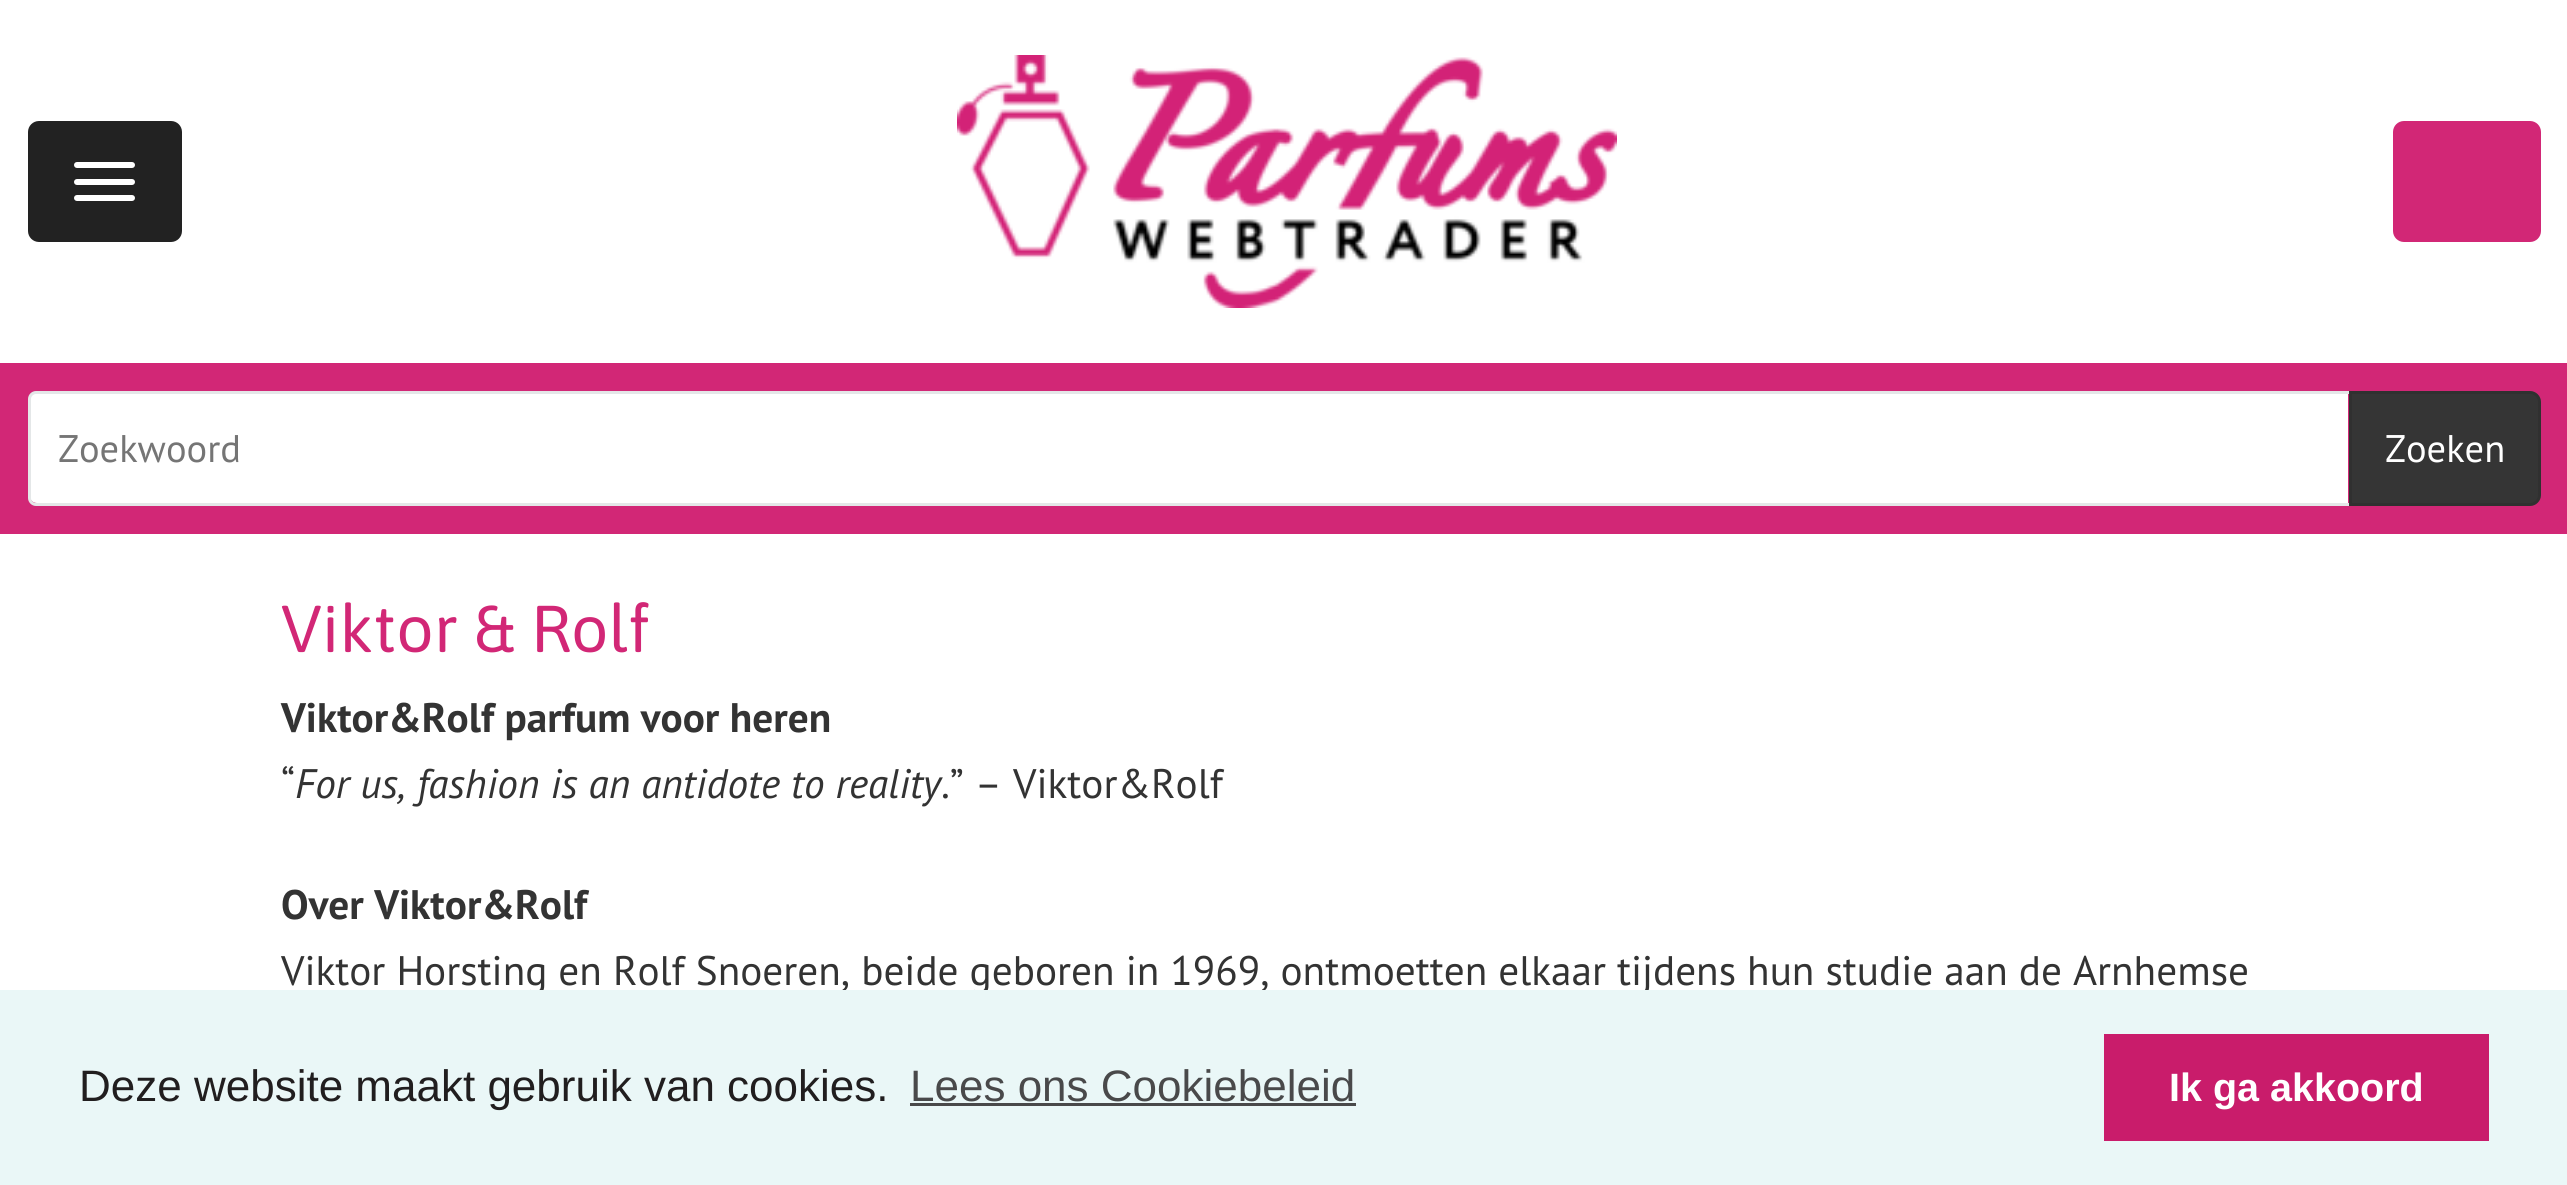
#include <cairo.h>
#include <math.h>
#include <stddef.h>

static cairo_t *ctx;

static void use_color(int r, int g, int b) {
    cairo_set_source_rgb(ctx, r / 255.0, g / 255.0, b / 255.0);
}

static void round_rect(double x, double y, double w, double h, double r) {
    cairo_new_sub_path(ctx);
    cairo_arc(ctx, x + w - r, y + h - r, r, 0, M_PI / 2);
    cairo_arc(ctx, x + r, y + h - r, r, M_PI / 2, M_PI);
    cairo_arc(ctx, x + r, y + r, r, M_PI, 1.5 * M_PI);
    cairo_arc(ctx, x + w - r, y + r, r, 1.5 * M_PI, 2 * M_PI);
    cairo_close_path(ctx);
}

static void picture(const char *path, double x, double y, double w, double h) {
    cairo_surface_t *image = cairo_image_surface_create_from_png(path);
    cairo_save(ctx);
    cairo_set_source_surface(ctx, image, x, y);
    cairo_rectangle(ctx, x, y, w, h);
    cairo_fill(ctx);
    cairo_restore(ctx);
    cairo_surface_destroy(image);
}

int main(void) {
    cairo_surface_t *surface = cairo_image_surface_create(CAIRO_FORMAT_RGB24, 2567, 1185);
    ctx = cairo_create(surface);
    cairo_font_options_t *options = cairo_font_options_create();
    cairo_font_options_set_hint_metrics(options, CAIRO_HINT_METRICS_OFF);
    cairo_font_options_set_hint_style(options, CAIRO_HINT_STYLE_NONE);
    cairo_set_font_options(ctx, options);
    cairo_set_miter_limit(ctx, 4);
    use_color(255, 255, 255);
    cairo_paint(ctx);
    use_color(34, 34, 34);
    round_rect(29.5, 122.5, 151, 118, 9.5);
    cairo_fill_preserve(ctx);
    cairo_set_line_width(ctx, 3);
    cairo_stroke(ctx);
    use_color(255, 255, 255);
    round_rect(74, 162, 61, 6, 3);
    cairo_fill(ctx);
    round_rect(74, 179, 61, 6, 3);
    cairo_fill(ctx);
    round_rect(74, 195, 61, 6, 3);
    cairo_fill(ctx);
    picture("img1.png", 957, 55, 660, 253);
    use_color(210, 39, 118);
    round_rect(2394.5, 122.5, 145, 118, 9.5);
    cairo_fill_preserve(ctx);
    cairo_stroke(ctx);
    cairo_rectangle(ctx, 0, 363, 2567, 171);
    cairo_fill(ctx);
    use_color(255, 255, 255);
    cairo_new_path(ctx);
    cairo_move_to(ctx, 37, 393);
    cairo_line_to(ctx, 2348, 393);
    cairo_line_to(ctx, 2348, 503);
    cairo_line_to(ctx, 37, 503);
    cairo_curve_to(ctx, 33, 503, 30, 500, 30, 497);
    cairo_line_to(ctx, 30, 400);
    cairo_curve_to(ctx, 30, 396, 33, 393, 37, 393);
    cairo_close_path(ctx);
    cairo_fill(ctx);
    cairo_new_path(ctx);
    cairo_move_to(ctx, 36, 392.5);
    cairo_line_to(ctx, 2483.5, 392.5);
    cairo_curve_to(ctx, 2514.5, 392.5, 2539.5, 417.5, 2539.5, 448.5);
    cairo_curve_to(ctx, 2539.5, 479.5, 2514.5, 504.5, 2483.5, 504.5);
    cairo_line_to(ctx, 36, 504.5);
    cairo_curve_to(ctx, 32.5, 504.5, 29.5, 501.5, 29.5, 498);
    cairo_line_to(ctx, 29.5, 399);
    cairo_curve_to(ctx, 29.5, 395.5, 32.5, 392.5, 36, 392.5);
    cairo_close_path(ctx);
    use_color(228, 231, 232);
    cairo_stroke(ctx);
    cairo_select_font_face(ctx, "PT Sans", CAIRO_FONT_SLANT_NORMAL, CAIRO_FONT_WEIGHT_NORMAL);
    cairo_set_font_size(ctx, 38.5);
    use_color(117, 117, 117);
    cairo_move_to(ctx, 58, 462);
    cairo_show_text(ctx, "Zoekwoord");
    use_color(53, 53, 53);
    cairo_new_path(ctx);
    cairo_move_to(ctx, 2349, 391);
    cairo_line_to(ctx, 2530, 391);
    cairo_curve_to(ctx, 2536, 391, 2541, 396, 2541, 402);
    cairo_line_to(ctx, 2541, 495);
    cairo_curve_to(ctx, 2541, 501, 2536, 506, 2530, 506);
    cairo_line_to(ctx, 2349, 506);
    cairo_close_path(ctx);
    cairo_fill(ctx);
    cairo_new_path(ctx);
    cairo_move_to(ctx, 2350.5, 392.5);
    cairo_line_to(ctx, 2530, 392.5);
    cairo_curve_to(ctx, 2535, 392.5, 2539.5, 397, 2539.5, 402);
    cairo_line_to(ctx, 2539.5, 495);
    cairo_curve_to(ctx, 2539.5, 500, 2535, 504.5, 2530, 504.5);
    cairo_line_to(ctx, 2350.5, 504.5);
    cairo_close_path(ctx);
    cairo_set_source_rgba(ctx, 0, 0, 0, 0.1);
    cairo_stroke(ctx);
    use_color(255, 255, 255);
    cairo_move_to(ctx, 2385, 462);
    cairo_show_text(ctx, "Zoeken");
    cairo_select_font_face(ctx, "Asap", CAIRO_FONT_SLANT_NORMAL, CAIRO_FONT_WEIGHT_NORMAL);
    cairo_set_font_size(ctx, 66);
    use_color(210, 39, 118);
    cairo_move_to(ctx, 281, 652);
    cairo_show_text(ctx, "Viktor & Rolf");
    cairo_select_font_face(ctx, "PT Sans", CAIRO_FONT_SLANT_NORMAL, CAIRO_FONT_WEIGHT_BOLD);
    cairo_set_font_size(ctx, 41.25);
    use_color(51, 51, 51);
    cairo_move_to(ctx, 281, 732);
    cairo_show_text(ctx, "Viktor&Rolf parfum voor heren");
    cairo_select_font_face(ctx, "PT Sans", CAIRO_FONT_SLANT_NORMAL, CAIRO_FONT_WEIGHT_NORMAL);
    cairo_move_to(ctx, 281, 798);
    cairo_show_text(ctx, "“");
    cairo_select_font_face(ctx, "PT Sans", CAIRO_FONT_SLANT_ITALIC, CAIRO_FONT_WEIGHT_NORMAL);
    cairo_move_to(ctx, 295, 798);
    cairo_show_text(ctx, "For us, fashion is an antidote to reality");
    cairo_select_font_face(ctx, "PT Sans", CAIRO_FONT_SLANT_NORMAL, CAIRO_FONT_WEIGHT_NORMAL);
    cairo_move_to(ctx, 941, 798);
    cairo_show_text(ctx, ".” – Viktor&Rolf");
    cairo_select_font_face(ctx, "PT Sans", CAIRO_FONT_SLANT_NORMAL, CAIRO_FONT_WEIGHT_BOLD);
    cairo_move_to(ctx, 281, 919);
    cairo_show_text(ctx, "Over Viktor&Rolf");
    cairo_select_font_face(ctx, "PT Sans", CAIRO_FONT_SLANT_NORMAL, CAIRO_FONT_WEIGHT_NORMAL);
    cairo_move_to(ctx, 281, 985);
    cairo_show_text(ctx, "Viktor Horsting en Rolf Snoeren, beide geboren in 1969, ontmoetten elkaar tijdens hun studie aan de Arnhemse");
    use_color(234, 247, 247);
    cairo_rectangle(ctx, 0, 990, 2567, 195);
    cairo_fill(ctx);
    cairo_select_font_face(ctx, "Liberation Sans", CAIRO_FONT_SLANT_NORMAL, CAIRO_FONT_WEIGHT_NORMAL);
    cairo_set_font_size(ctx, 44);
    use_color(33, 30, 31);
    cairo_move_to(ctx, 79, 1101);
    cairo_show_text(ctx, "Deze website maakt gebruik van cookies.");
    use_color(73, 73, 74);
    cairo_move_to(ctx, 910, 1101);
    cairo_show_text(ctx, "Lees ons Cookiebeleid");
    cairo_rectangle(ctx, 910, 1103, 446, 3);
    cairo_fill(ctx);
    use_color(201, 28, 107);
    cairo_rectangle(ctx, 2104, 1034, 385, 107);
    cairo_fill(ctx);
    cairo_select_font_face(ctx, "Liberation Sans", CAIRO_FONT_SLANT_NORMAL, CAIRO_FONT_WEIGHT_BOLD);
    cairo_set_font_size(ctx, 39.5);
    use_color(255, 255, 255);
    cairo_move_to(ctx, 2169, 1101);
    cairo_show_text(ctx, "Ik ga akkoord");
    cairo_surface_write_to_png(surface, "result.png");
    cairo_font_options_destroy(options);
    cairo_destroy(ctx);
    cairo_surface_destroy(surface);
    return 0;
}
